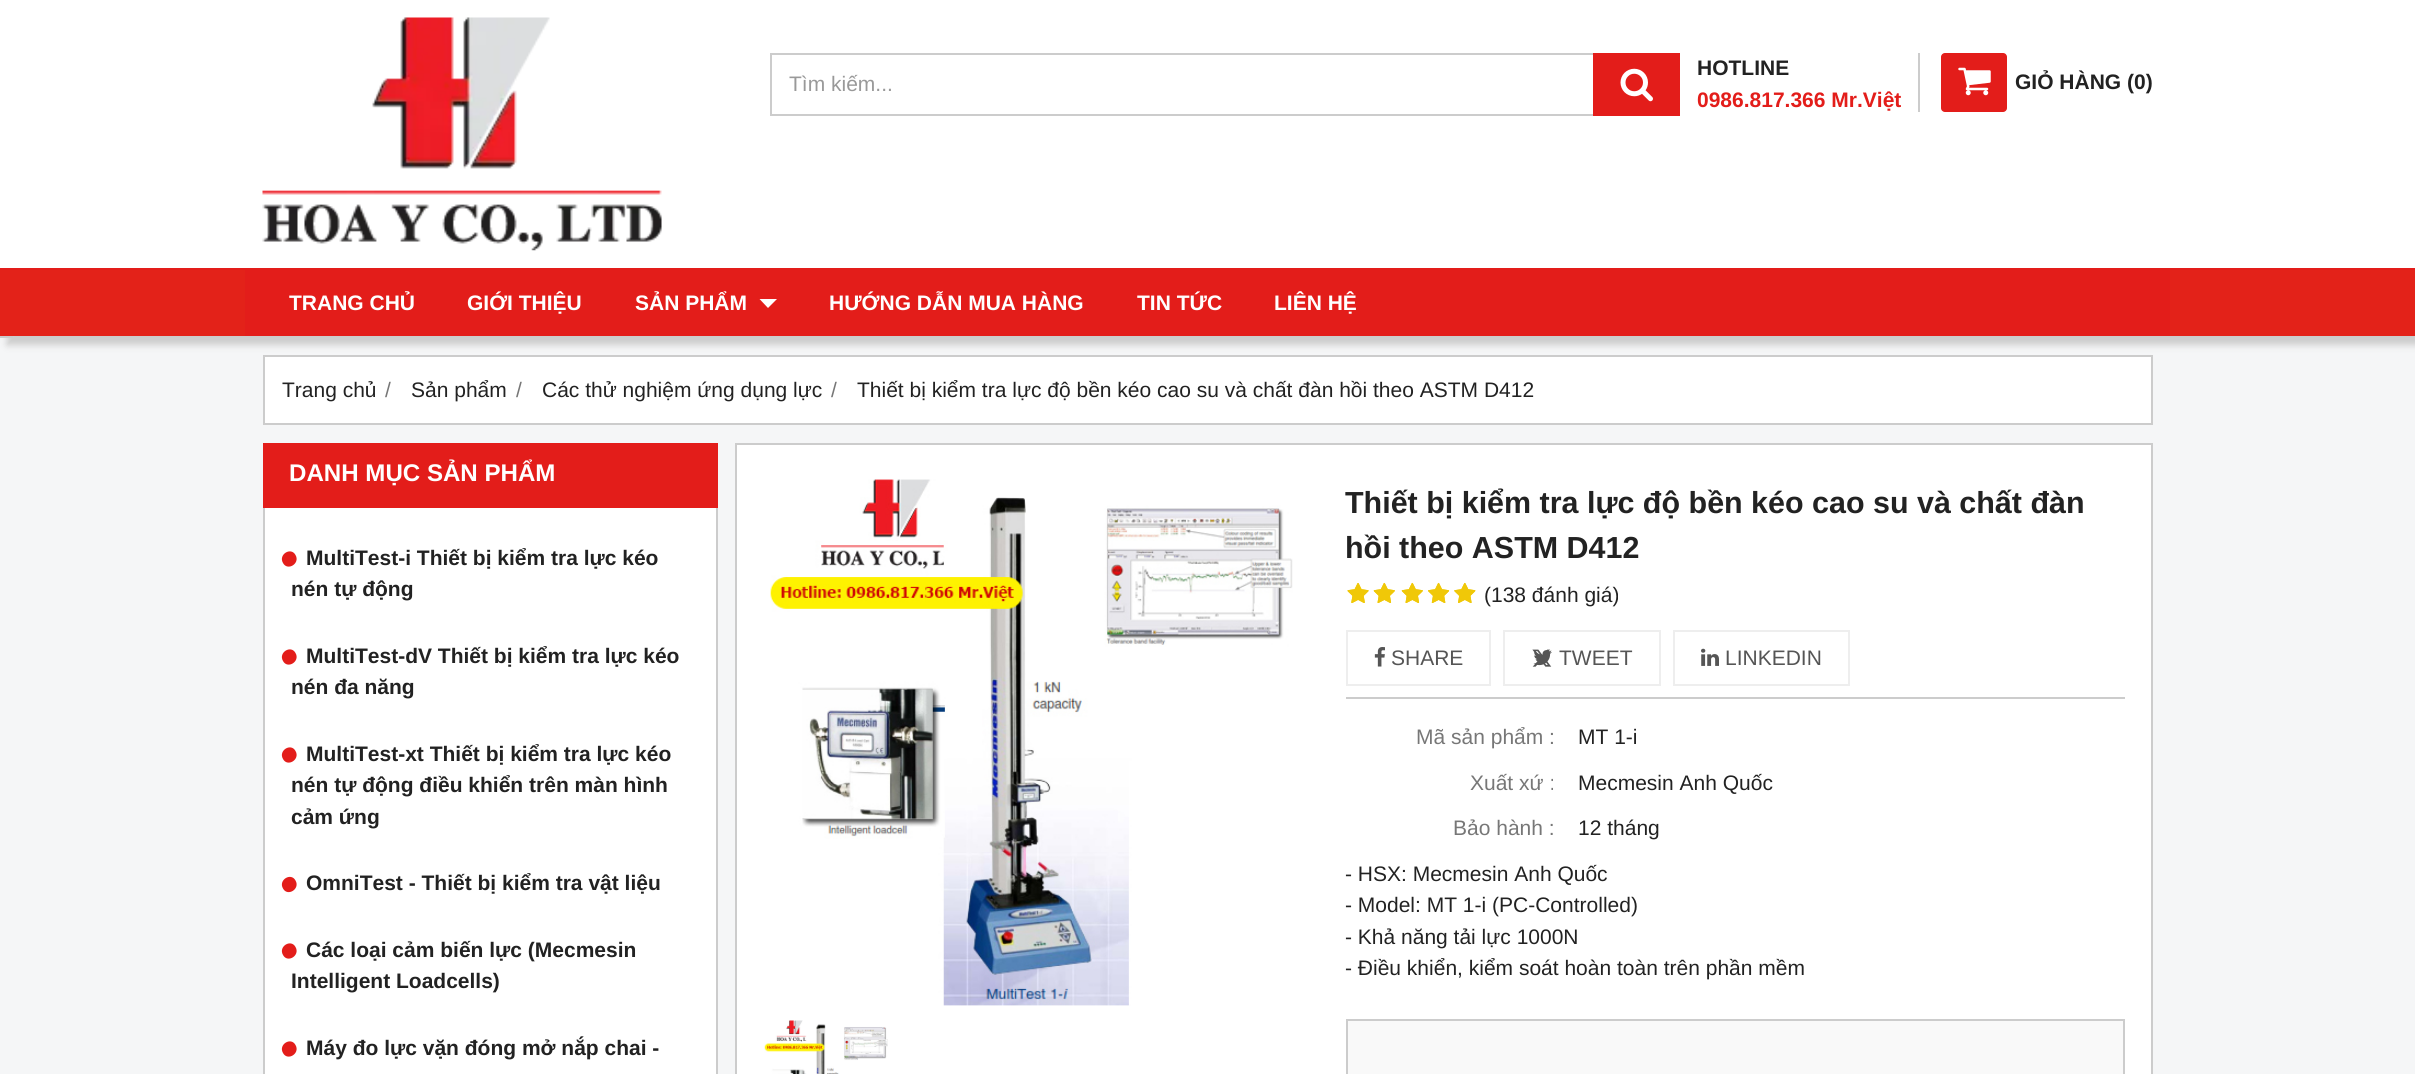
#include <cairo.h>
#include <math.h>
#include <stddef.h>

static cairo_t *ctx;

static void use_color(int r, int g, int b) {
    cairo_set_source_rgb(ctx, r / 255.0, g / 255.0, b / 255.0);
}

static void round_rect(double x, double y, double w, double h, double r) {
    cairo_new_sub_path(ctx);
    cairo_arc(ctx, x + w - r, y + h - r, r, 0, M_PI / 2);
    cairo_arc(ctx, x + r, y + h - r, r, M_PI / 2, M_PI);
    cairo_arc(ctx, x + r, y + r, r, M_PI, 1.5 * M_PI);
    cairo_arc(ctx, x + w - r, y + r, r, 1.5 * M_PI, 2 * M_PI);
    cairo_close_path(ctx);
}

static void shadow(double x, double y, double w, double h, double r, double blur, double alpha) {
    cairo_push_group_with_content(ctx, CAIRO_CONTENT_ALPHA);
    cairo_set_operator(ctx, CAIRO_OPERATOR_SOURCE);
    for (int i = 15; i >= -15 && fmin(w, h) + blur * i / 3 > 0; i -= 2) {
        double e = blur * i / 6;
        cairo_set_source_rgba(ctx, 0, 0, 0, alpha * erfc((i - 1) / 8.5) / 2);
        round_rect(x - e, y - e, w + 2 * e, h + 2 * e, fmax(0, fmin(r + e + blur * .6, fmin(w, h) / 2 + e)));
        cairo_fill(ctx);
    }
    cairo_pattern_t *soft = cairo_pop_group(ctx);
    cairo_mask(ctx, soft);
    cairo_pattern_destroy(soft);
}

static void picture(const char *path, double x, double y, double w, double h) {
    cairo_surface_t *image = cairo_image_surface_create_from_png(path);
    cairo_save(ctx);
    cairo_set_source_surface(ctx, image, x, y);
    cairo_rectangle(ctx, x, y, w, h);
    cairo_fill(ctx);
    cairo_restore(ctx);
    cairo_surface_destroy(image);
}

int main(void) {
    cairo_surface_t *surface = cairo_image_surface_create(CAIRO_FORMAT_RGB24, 2415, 1074);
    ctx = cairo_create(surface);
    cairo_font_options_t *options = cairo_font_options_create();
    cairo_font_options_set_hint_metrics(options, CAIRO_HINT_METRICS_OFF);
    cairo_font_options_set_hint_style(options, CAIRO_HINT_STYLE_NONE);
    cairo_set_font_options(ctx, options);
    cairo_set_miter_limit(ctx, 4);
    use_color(245, 246, 247);
    cairo_paint(ctx);
    use_color(204, 204, 204);
    shadow(7, 275, 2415, 70, 0, 3.5, 1);
    use_color(255, 255, 255);
    cairo_rectangle(ctx, 0, 0, 2415, 268);
    cairo_fill(ctx);
    picture("img1.png", 262, 17, 400, 234);
    cairo_rectangle(ctx, 771, 54, 908, 61);
    use_color(204, 204, 204);
    cairo_stroke(ctx);
    cairo_select_font_face(ctx, "Liberation Sans", CAIRO_FONT_SLANT_NORMAL, CAIRO_FONT_WEIGHT_NORMAL);
    cairo_set_font_size(ctx, 21);
    use_color(153, 153, 153);
    cairo_move_to(ctx, 789, 91);
    cairo_show_text(ctx, "Tìm kiếm...");
    use_color(227, 29, 26);
    cairo_rectangle(ctx, 1593, 53, 87, 63);
    cairo_fill(ctx);
    picture("img2.png", 1620, 68, 33, 34);
    cairo_select_font_face(ctx, "Liberation Sans", CAIRO_FONT_SLANT_NORMAL, CAIRO_FONT_WEIGHT_BOLD);
    use_color(34, 34, 34);
    cairo_move_to(ctx, 1697, 75);
    cairo_show_text(ctx, "HOTLINE");
    use_color(227, 29, 26);
    cairo_move_to(ctx, 1697, 107);
    cairo_show_text(ctx, "0986.817.366 Mr.Việt");
    use_color(204, 204, 204);
    cairo_rectangle(ctx, 1918, 53, 2, 59);
    cairo_fill(ctx);
    use_color(227, 29, 26);
    round_rect(1941, 53, 66, 59, 4);
    cairo_fill(ctx);
    picture("img3.png", 1958, 67, 33, 29);
    use_color(34, 34, 34);
    cairo_move_to(ctx, 2015, 89);
    cairo_show_text(ctx, "GIỎ HÀNG (0)");
    use_color(227, 34, 25);
    cairo_rectangle(ctx, 0, 270, 2415, 66);
    cairo_fill(ctx);
    use_color(227, 29, 26);
    cairo_rectangle(ctx, 0, 268, 2415, 2);
    cairo_fill(ctx);
    use_color(204, 204, 204);
    cairo_rectangle(ctx, 0, 336, 13, 2);
    cairo_fill(ctx);
    use_color(227, 29, 26);
    cairo_rectangle(ctx, 245, 270, 1925, 66);
    cairo_fill(ctx);
    use_color(255, 255, 255);
    cairo_move_to(ctx, 289, 310);
    cairo_show_text(ctx, "TRANG CHỦ");
    cairo_move_to(ctx, 467, 310);
    cairo_show_text(ctx, "GIỚI THIỆU");
    cairo_move_to(ctx, 635, 310);
    cairo_show_text(ctx, "SẢN PHẨM");
    cairo_new_path(ctx);
    cairo_move_to(ctx, 759.5, 299);
    cairo_line_to(ctx, 777, 299);
    cairo_line_to(ctx, 768, 308);
    cairo_close_path(ctx);
    cairo_fill(ctx);
    cairo_move_to(ctx, 829, 310);
    cairo_show_text(ctx, "HƯỚNG DẪN MUA HÀNG");
    cairo_move_to(ctx, 1137, 310);
    cairo_show_text(ctx, "TIN TỨC");
    cairo_move_to(ctx, 1274, 310);
    cairo_show_text(ctx, "LIÊN HỆ");
    cairo_rectangle(ctx, 264, 356, 1888, 68);
    cairo_fill_preserve(ctx);
    use_color(204, 204, 204);
    cairo_stroke(ctx);
    cairo_select_font_face(ctx, "Liberation Sans", CAIRO_FONT_SLANT_NORMAL, CAIRO_FONT_WEIGHT_NORMAL);
    use_color(34, 34, 34);
    cairo_move_to(ctx, 282, 397);
    cairo_show_text(ctx, "Trang chủ");
    use_color(119, 119, 119);
    cairo_move_to(ctx, 385, 397);
    cairo_show_text(ctx, "/");
    use_color(34, 34, 34);
    cairo_move_to(ctx, 411, 397);
    cairo_show_text(ctx, "Sản phẩm");
    use_color(119, 119, 119);
    cairo_move_to(ctx, 516, 397);
    cairo_show_text(ctx, "/");
    use_color(34, 34, 34);
    cairo_move_to(ctx, 542, 397);
    cairo_show_text(ctx, "Các thử nghiệm ứng dụng lực");
    use_color(119, 119, 119);
    cairo_move_to(ctx, 831, 397);
    cairo_show_text(ctx, "/");
    use_color(34, 34, 34);
    cairo_move_to(ctx, 857, 397);
    cairo_show_text(ctx, "Thiết bị kiểm tra lực độ bền kéo cao su và chất đàn hồi theo ASTM D412");
    use_color(227, 29, 26);
    cairo_rectangle(ctx, 263, 443, 455, 65);
    cairo_fill(ctx);
    cairo_select_font_face(ctx, "Liberation Sans", CAIRO_FONT_SLANT_NORMAL, CAIRO_FONT_WEIGHT_BOLD);
    cairo_set_font_size(ctx, 24.1);
    use_color(255, 255, 255);
    cairo_move_to(ctx, 289, 481);
    cairo_show_text(ctx, "DANH MỤC SẢN PHẨM");
    cairo_rectangle(ctx, 265, 508, 451, 566);
    cairo_fill(ctx);
    use_color(204, 204, 204);
    cairo_rectangle(ctx, 716, 508, 2, 566);
    cairo_fill(ctx);
    cairo_rectangle(ctx, 263, 508, 2, 566);
    cairo_fill(ctx);
    use_color(227, 29, 26);
    cairo_new_path(ctx);
    cairo_move_to(ctx, 295.5, 555);
    cairo_curve_to(ctx, 300.5, 563.5, 287.5, 571.5, 283, 563);
    cairo_curve_to(ctx, 278, 554.5, 291, 546.5, 295.5, 555);
    cairo_close_path(ctx);
    cairo_fill(ctx);
    cairo_set_font_size(ctx, 21);
    use_color(34, 34, 34);
    cairo_move_to(ctx, 306, 565);
    cairo_show_text(ctx, "MultiTest-i Thiết bị kiểm tra lực kéo");
    cairo_move_to(ctx, 291, 596);
    cairo_show_text(ctx, "nén tự động");
    use_color(227, 29, 26);
    cairo_new_path(ctx);
    cairo_move_to(ctx, 295.5, 653);
    cairo_curve_to(ctx, 300.5, 661.5, 287.5, 669.5, 283, 661);
    cairo_curve_to(ctx, 278, 652.5, 291, 644.5, 295.5, 653);
    cairo_close_path(ctx);
    cairo_fill(ctx);
    use_color(34, 34, 34);
    cairo_move_to(ctx, 306, 663);
    cairo_show_text(ctx, "MultiTest-dV Thiết bị kiểm tra lực kéo");
    cairo_move_to(ctx, 291, 694);
    cairo_show_text(ctx, "nén đa năng");
    use_color(227, 29, 26);
    cairo_new_path(ctx);
    cairo_move_to(ctx, 295.5, 751);
    cairo_curve_to(ctx, 300.5, 759.5, 287.5, 767.5, 283, 759);
    cairo_curve_to(ctx, 278, 750.5, 291, 742.5, 295.5, 751);
    cairo_close_path(ctx);
    cairo_fill(ctx);
    use_color(34, 34, 34);
    cairo_move_to(ctx, 306, 761);
    cairo_show_text(ctx, "MultiTest-xt Thiết bị kiểm tra lực kéo");
    cairo_move_to(ctx, 291, 792);
    cairo_show_text(ctx, "nén tự động điều khiển trên màn hình");
    cairo_move_to(ctx, 291, 824);
    cairo_show_text(ctx, "cảm ứng");
    use_color(227, 29, 26);
    cairo_new_path(ctx);
    cairo_move_to(ctx, 295.5, 880.5);
    cairo_curve_to(ctx, 300.5, 889, 287.5, 897, 283, 888.5);
    cairo_curve_to(ctx, 278, 880, 291, 872, 295.5, 880.5);
    cairo_close_path(ctx);
    cairo_fill(ctx);
    use_color(34, 34, 34);
    cairo_move_to(ctx, 306, 890);
    cairo_show_text(ctx, "OmniTest - Thiết bị kiểm tra vật liệu");
    use_color(227, 29, 26);
    cairo_new_path(ctx);
    cairo_move_to(ctx, 295.5, 947);
    cairo_curve_to(ctx, 300.5, 955.5, 287.5, 963.5, 283, 955);
    cairo_curve_to(ctx, 278, 946.5, 291, 938.5, 295.5, 947);
    cairo_close_path(ctx);
    cairo_fill(ctx);
    use_color(34, 34, 34);
    cairo_move_to(ctx, 306, 957);
    cairo_show_text(ctx, "Các loại cảm biến lực (Mecmesin");
    cairo_move_to(ctx, 291, 988);
    cairo_show_text(ctx, "Intelligent Loadcells)");
    use_color(227, 29, 26);
    cairo_new_path(ctx);
    cairo_move_to(ctx, 295.5, 1045);
    cairo_curve_to(ctx, 300.5, 1053.5, 287.5, 1061.5, 283, 1053);
    cairo_curve_to(ctx, 278, 1044.5, 291, 1036.5, 295.5, 1045);
    cairo_close_path(ctx);
    cairo_fill(ctx);
    use_color(34, 34, 34);
    cairo_move_to(ctx, 306, 1055);
    cairo_show_text(ctx, "Máy đo lực vặn đóng mở nắp chai -");
    use_color(255, 255, 255);
    cairo_rectangle(ctx, 736, 444, 1416, 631);
    cairo_fill_preserve(ctx);
    use_color(204, 204, 204);
    cairo_stroke(ctx);
    picture("img4.png", 770, 479, 523, 527);
    picture("img5.png", 764, 1020, 124, 54);
    cairo_set_font_size(ctx, 30.45);
    use_color(34, 34, 34);
    cairo_move_to(ctx, 1345, 513);
    cairo_show_text(ctx, "Thiết bị kiểm tra lực độ bền kéo cao su và chất đàn");
    cairo_move_to(ctx, 1345, 558);
    cairo_show_text(ctx, "hồi theo ASTM D412");
    picture("img10.png", 1347, 583, 22, 20);
    picture("img6.png", 1347, 583, 22, 20);
    picture("img11.png", 1373, 582, 22, 21);
    picture("img7.png", 1373, 582, 22, 21);
    picture("img11.png", 1401, 582, 22, 21);
    picture("img7.png", 1401, 582, 22, 21);
    picture("img12.png", 1428, 582, 22, 21);
    picture("img8.png", 1428, 582, 22, 21);
    picture("img13.png", 1454, 582, 22, 21);
    picture("img9.png", 1454, 582, 22, 21);
    cairo_select_font_face(ctx, "Liberation Sans", CAIRO_FONT_SLANT_NORMAL, CAIRO_FONT_WEIGHT_NORMAL);
    cairo_set_font_size(ctx, 21);
    cairo_move_to(ctx, 1484, 602);
    cairo_show_text(ctx, "(138 đánh giá)");
    use_color(204, 204, 204);
    cairo_rectangle(ctx, 1346, 697, 779, 2);
    cairo_fill(ctx);
    cairo_rectangle(ctx, 1347, 631, 143, 54);
    use_color(238, 238, 238);
    cairo_stroke(ctx);
    picture("img14.png", 1374, 647, 11, 20);
    use_color(85, 85, 85);
    cairo_move_to(ctx, 1391, 665);
    cairo_show_text(ctx, "SHARE");
    cairo_rectangle(ctx, 1504, 631, 156, 54);
    use_color(238, 238, 238);
    cairo_stroke(ctx);
    picture("img15.png", 1532, 649, 20, 18);
    picture("img16.png", 1533, 650, 19, 16);
    use_color(85, 85, 85);
    cairo_move_to(ctx, 1559, 665);
    cairo_show_text(ctx, "TWEET");
    cairo_rectangle(ctx, 1674, 631, 175, 54);
    use_color(238, 238, 238);
    cairo_stroke(ctx);
    picture("img17.png", 1701, 648, 18, 18);
    use_color(85, 85, 85);
    cairo_move_to(ctx, 1725, 665);
    cairo_show_text(ctx, "LINKEDIN");
    use_color(119, 119, 119);
    cairo_move_to(ctx, 1416, 744);
    cairo_show_text(ctx, "Mã sản phẩm :");
    use_color(34, 34, 34);
    cairo_move_to(ctx, 1578, 744);
    cairo_show_text(ctx, "MT 1-i");
    use_color(119, 119, 119);
    cairo_move_to(ctx, 1470, 790);
    cairo_show_text(ctx, "Xuất xứ :");
    use_color(34, 34, 34);
    cairo_move_to(ctx, 1578, 790);
    cairo_show_text(ctx, "Mecmesin Anh Quốc");
    use_color(119, 119, 119);
    cairo_move_to(ctx, 1453, 835);
    cairo_show_text(ctx, "Bảo hành :");
    use_color(34, 34, 34);
    cairo_move_to(ctx, 1578, 835);
    cairo_show_text(ctx, "12 tháng");
    cairo_move_to(ctx, 1345, 881);
    cairo_show_text(ctx, "- HSX: Mecmesin Anh Quốc");
    cairo_move_to(ctx, 1345, 912);
    cairo_show_text(ctx, "- Model: MT 1-i (PC-Controlled)");
    cairo_move_to(ctx, 1345, 944);
    cairo_show_text(ctx, "- Khả năng tải lực 1000N");
    cairo_move_to(ctx, 1345, 975);
    cairo_show_text(ctx, "- Điều khiển, kiểm soát hoàn toàn trên phần mềm");
    use_color(249, 249, 249);
    cairo_rectangle(ctx, 1347, 1020, 777, 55);
    cairo_fill_preserve(ctx);
    use_color(204, 204, 204);
    cairo_stroke(ctx);
    cairo_surface_write_to_png(surface, "result.png");
    cairo_font_options_destroy(options);
    cairo_destroy(ctx);
    cairo_surface_destroy(surface);
    return 0;
}
